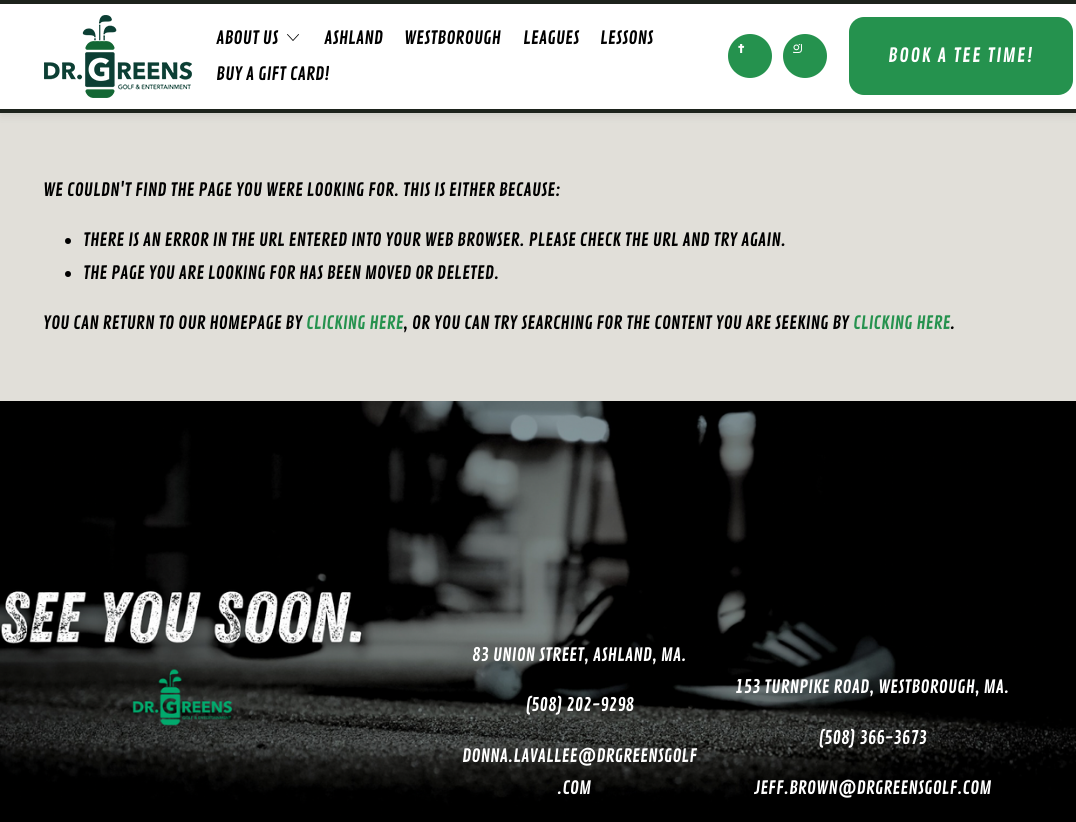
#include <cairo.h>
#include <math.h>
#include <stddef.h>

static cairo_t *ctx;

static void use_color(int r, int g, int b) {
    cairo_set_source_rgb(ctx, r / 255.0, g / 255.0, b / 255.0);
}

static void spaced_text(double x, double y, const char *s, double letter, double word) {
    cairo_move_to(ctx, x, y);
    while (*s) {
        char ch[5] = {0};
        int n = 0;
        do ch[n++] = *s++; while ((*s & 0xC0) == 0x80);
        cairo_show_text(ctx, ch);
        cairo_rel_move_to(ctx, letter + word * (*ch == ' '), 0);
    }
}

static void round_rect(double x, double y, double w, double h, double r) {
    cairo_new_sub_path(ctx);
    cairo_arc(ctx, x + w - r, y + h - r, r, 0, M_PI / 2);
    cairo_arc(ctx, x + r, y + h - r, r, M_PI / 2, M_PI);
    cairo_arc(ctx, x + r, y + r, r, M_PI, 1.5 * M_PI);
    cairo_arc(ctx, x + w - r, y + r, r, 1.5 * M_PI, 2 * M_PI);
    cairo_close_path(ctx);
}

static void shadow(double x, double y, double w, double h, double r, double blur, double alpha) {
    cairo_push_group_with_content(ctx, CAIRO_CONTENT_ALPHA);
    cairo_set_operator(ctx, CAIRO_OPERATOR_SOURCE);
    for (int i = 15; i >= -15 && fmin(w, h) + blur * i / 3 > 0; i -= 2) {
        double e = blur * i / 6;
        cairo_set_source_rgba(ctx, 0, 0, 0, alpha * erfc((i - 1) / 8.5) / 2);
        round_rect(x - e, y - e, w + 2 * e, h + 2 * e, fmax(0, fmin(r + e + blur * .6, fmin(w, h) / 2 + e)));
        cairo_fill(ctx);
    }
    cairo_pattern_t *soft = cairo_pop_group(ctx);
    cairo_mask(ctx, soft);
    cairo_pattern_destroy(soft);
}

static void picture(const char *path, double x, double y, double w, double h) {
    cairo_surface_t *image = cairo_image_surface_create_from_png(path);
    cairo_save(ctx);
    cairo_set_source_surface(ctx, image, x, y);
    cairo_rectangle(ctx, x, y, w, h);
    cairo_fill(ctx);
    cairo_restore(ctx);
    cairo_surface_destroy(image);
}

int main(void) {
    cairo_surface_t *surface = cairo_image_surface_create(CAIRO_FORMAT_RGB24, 1076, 822);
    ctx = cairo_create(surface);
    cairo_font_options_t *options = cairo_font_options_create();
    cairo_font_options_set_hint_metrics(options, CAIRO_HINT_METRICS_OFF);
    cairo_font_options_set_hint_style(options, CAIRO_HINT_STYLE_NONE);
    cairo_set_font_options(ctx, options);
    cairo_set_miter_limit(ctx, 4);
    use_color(225, 223, 217);
    cairo_paint(ctx);
    use_color(255, 255, 255);
    cairo_rectangle(ctx, 0, 4, 1076, 105);
    cairo_fill(ctx);
    cairo_save(ctx);
    cairo_rectangle(ctx, 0, 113, 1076, 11);
    cairo_clip(ctx);
    use_color(191, 190, 184);
    shadow(1, 1, 1074, 111, 0, 6, 1);
    cairo_restore(ctx);
    use_color(29, 35, 28);
    cairo_rectangle(ctx, 0, 0, 1076, 4);
    cairo_fill(ctx);
    cairo_rectangle(ctx, 0, 109, 1076, 4);
    cairo_fill(ctx);
    picture("img1.png", 44, 15, 148, 83);
    cairo_select_font_face(ctx, "Contrail One", CAIRO_FONT_SLANT_NORMAL, CAIRO_FONT_WEIGHT_NORMAL);
    cairo_set_font_size(ctx, 18);
    use_color(0, 0, 0);
    cairo_move_to(ctx, 216, 44);
    cairo_show_text(ctx, "ABOUT US");
    cairo_new_path(ctx);
    cairo_move_to(ctx, 298.5, 34.5);
    cairo_line_to(ctx, 293, 40.5);
    cairo_line_to(ctx, 287.5, 34.5);
    cairo_set_line_width(ctx, 0.8);
    cairo_set_line_cap(ctx, CAIRO_LINE_CAP_SQUARE);
    cairo_stroke(ctx);
    cairo_move_to(ctx, 324, 44);
    cairo_show_text(ctx, "ASHLAND");
    cairo_move_to(ctx, 404, 44);
    cairo_show_text(ctx, "WESTBOROUGH");
    cairo_move_to(ctx, 523, 44);
    cairo_show_text(ctx, "LEAGUES");
    cairo_move_to(ctx, 600, 44);
    cairo_show_text(ctx, "LESSONS");
    cairo_move_to(ctx, 216, 80);
    cairo_show_text(ctx, "BUY A GIFT CARD!");
    use_color(37, 146, 78);
    cairo_new_path(ctx);
    cairo_arc(ctx, 750, 56, 22, 0, 2 * M_PI);
    cairo_fill(ctx);
    picture("img2.png", 738, 44, 7, 9);
    cairo_arc(ctx, 805, 56, 22, 0, 2 * M_PI);
    cairo_fill(ctx);
    picture("img3.png", 793, 44, 9, 9);
    round_rect(849, 17, 224, 78, 15);
    cairo_fill(ctx);
    cairo_set_font_size(ctx, 19.25);
    use_color(255, 255, 255);
    spaced_text(888, 62, "BOOK A TEE TIME!", 1.4, 0);
    cairo_set_font_size(ctx, 18);
    use_color(0, 0, 0);
    cairo_move_to(ctx, 43, 196);
    cairo_show_text(ctx, "WE COULDN'T FIND THE PAGE YOU WERE LOOKING FOR. THIS IS EITHER BECAUSE:");
    cairo_new_path(ctx);
    cairo_arc(ctx, 68, 241, 3, 0, 2 * M_PI);
    cairo_fill(ctx);
    cairo_move_to(ctx, 83, 246);
    cairo_show_text(ctx, "THERE IS AN ERROR IN THE URL ENTERED INTO YOUR WEB BROWSER. PLEASE CHECK THE URL AND TRY AGAIN.");
    cairo_new_path(ctx);
    cairo_arc(ctx, 68, 274, 3, 0, 2 * M_PI);
    cairo_fill(ctx);
    cairo_move_to(ctx, 83, 279);
    cairo_show_text(ctx, "THE PAGE YOU ARE LOOKING FOR HAS BEEN MOVED OR DELETED.");
    cairo_move_to(ctx, 43, 329);
    cairo_show_text(ctx, "YOU CAN RETURN TO OUR HOMEPAGE BY");
    use_color(37, 146, 78);
    cairo_move_to(ctx, 306, 329);
    cairo_show_text(ctx, "CLICKING HERE");
    use_color(0, 0, 0);
    cairo_move_to(ctx, 403, 329);
    cairo_show_text(ctx, ", OR YOU CAN TRY SEARCHING FOR THE CONTENT YOU ARE SEEKING BY");
    use_color(37, 146, 78);
    cairo_move_to(ctx, 853, 329);
    cairo_show_text(ctx, "CLICKING HERE");
    use_color(0, 0, 0);
    cairo_move_to(ctx, 950, 329);
    cairo_show_text(ctx, ".");
    picture("img4.png", 0, 401, 1076, 421);
    use_color(255, 255, 255);
    cairo_move_to(ctx, 472, 661);
    cairo_show_text(ctx, "83 UNION STREET, ASHLAND, MA.");
    cairo_move_to(ctx, 525, 711);
    cairo_show_text(ctx, "(508) 202-9298");
    cairo_move_to(ctx, 462, 762);
    cairo_show_text(ctx, "DONNA.LAVALLEE@DRGREENSGOLF");
    cairo_move_to(ctx, 557, 794);
    cairo_show_text(ctx, ".COM");
    cairo_move_to(ctx, 735, 693);
    cairo_show_text(ctx, "153 TURNPIKE ROAD, WESTBOROUGH, MA.");
    cairo_move_to(ctx, 818, 744);
    cairo_show_text(ctx, "(508) 366-3673");
    cairo_move_to(ctx, 754, 794);
    cairo_show_text(ctx, "JEFF.BROWN@DRGREENSGOLF.COM");
    cairo_surface_write_to_png(surface, "result.png");
    cairo_font_options_destroy(options);
    cairo_destroy(ctx);
    cairo_surface_destroy(surface);
    return 0;
}
